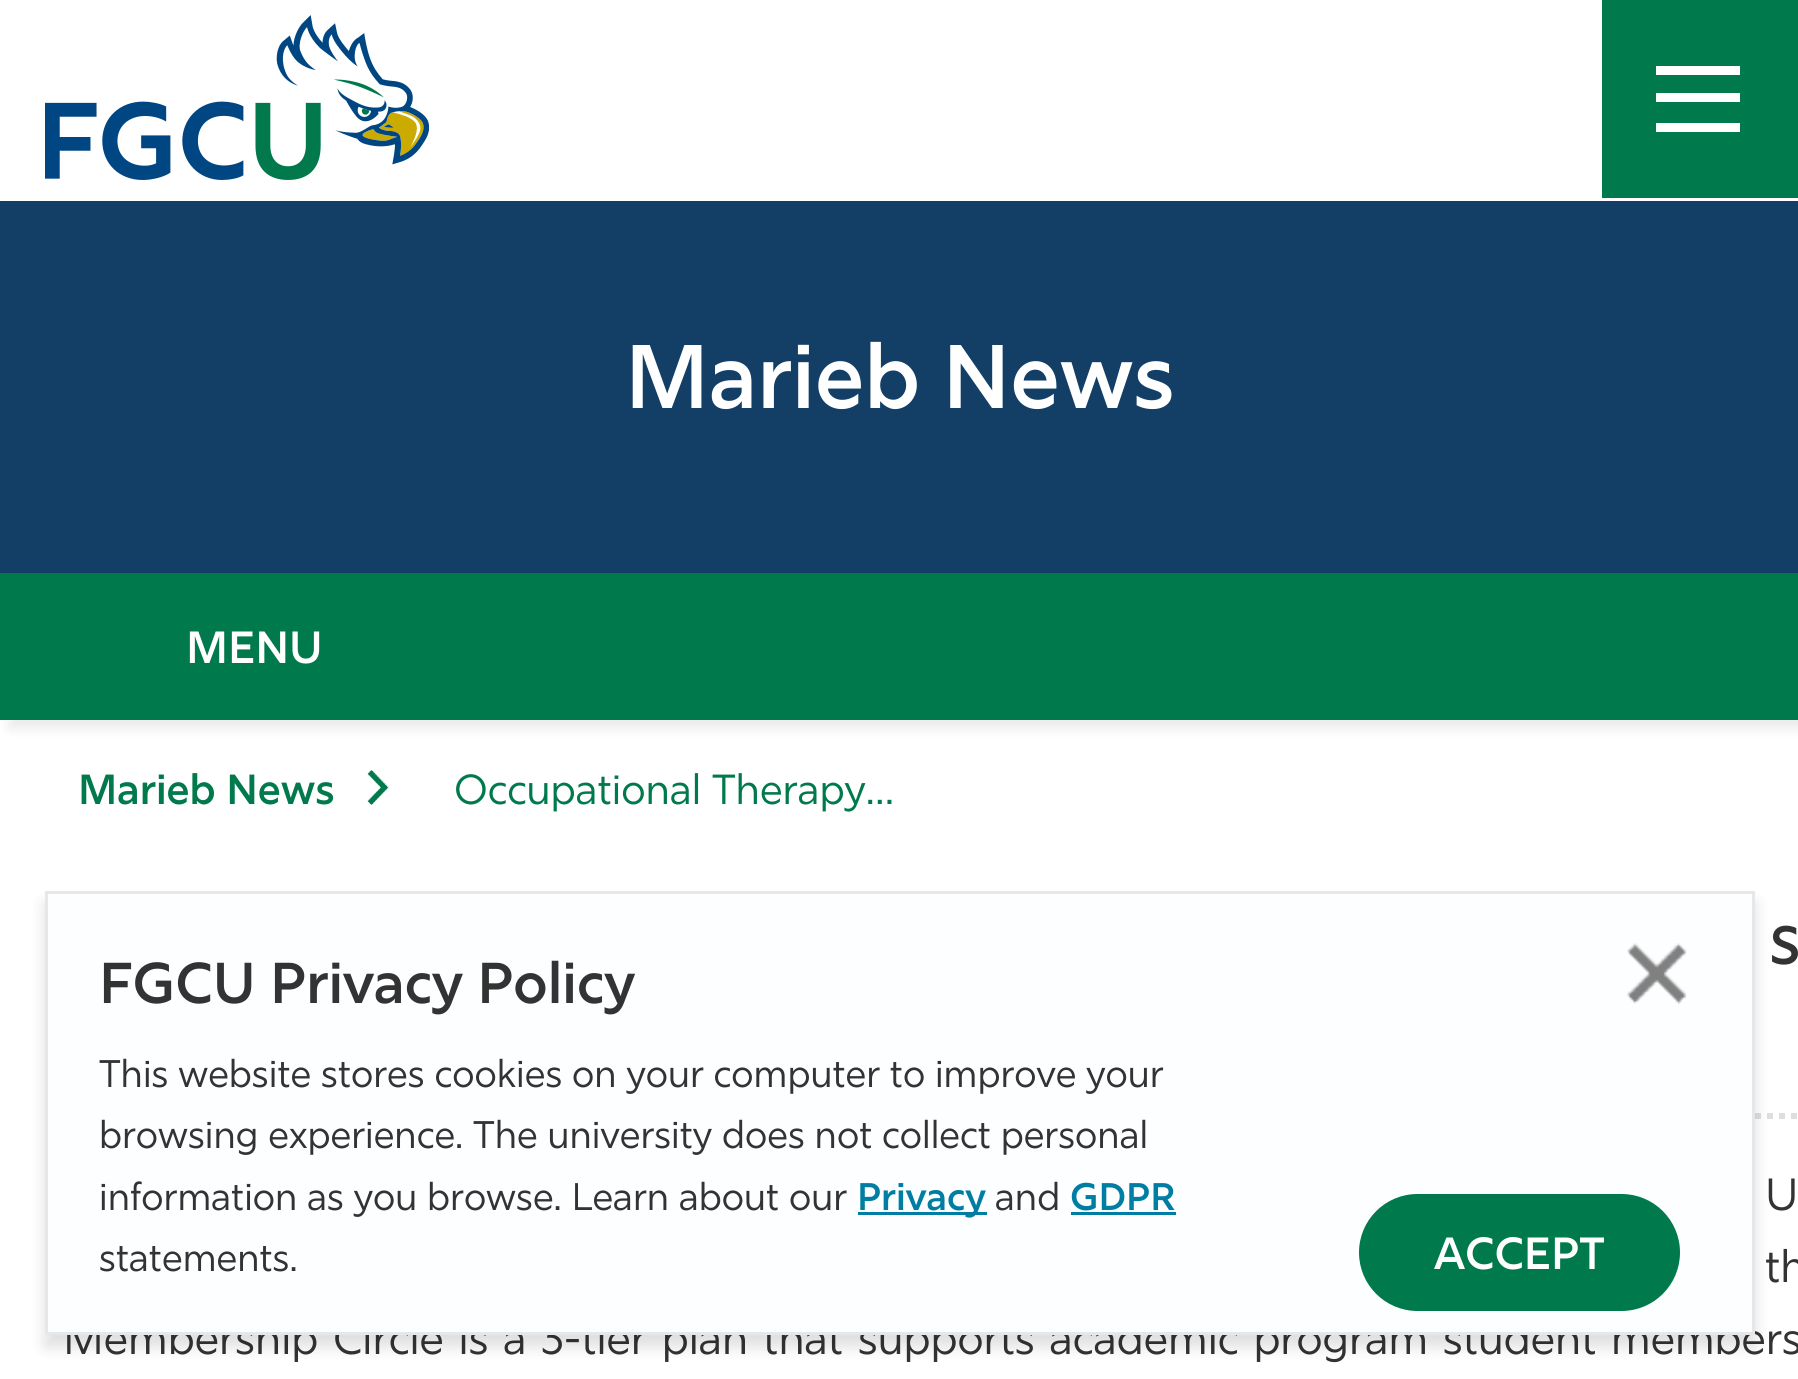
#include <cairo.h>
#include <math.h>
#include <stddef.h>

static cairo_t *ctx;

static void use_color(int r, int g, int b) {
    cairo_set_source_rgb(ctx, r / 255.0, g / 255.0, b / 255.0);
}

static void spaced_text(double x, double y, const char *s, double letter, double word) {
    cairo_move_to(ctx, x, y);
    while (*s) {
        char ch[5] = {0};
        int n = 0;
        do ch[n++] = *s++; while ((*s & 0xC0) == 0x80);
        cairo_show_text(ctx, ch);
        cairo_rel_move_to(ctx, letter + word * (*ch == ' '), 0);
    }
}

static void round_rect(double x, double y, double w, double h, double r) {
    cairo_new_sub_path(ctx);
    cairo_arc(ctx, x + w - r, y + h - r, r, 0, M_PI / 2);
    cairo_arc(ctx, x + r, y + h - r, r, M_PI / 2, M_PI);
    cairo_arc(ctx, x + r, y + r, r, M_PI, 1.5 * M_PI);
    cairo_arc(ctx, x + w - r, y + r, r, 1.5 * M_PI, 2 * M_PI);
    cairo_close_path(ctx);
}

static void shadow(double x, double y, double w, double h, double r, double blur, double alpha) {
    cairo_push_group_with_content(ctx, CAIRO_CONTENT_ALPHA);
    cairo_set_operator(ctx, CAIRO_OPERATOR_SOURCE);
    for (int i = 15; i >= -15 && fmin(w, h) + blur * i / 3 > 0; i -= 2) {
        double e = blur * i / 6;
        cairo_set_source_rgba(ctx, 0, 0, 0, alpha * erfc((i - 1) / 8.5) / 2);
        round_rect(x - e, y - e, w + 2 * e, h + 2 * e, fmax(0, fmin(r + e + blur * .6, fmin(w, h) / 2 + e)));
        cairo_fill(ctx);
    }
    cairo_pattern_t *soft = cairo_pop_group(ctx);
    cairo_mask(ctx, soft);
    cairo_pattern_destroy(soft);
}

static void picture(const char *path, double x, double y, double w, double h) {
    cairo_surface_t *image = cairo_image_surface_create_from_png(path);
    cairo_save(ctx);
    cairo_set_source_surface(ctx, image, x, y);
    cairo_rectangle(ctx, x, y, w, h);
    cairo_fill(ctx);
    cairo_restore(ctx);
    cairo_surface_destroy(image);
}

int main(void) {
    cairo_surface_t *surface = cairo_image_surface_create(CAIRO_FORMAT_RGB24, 1798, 1379);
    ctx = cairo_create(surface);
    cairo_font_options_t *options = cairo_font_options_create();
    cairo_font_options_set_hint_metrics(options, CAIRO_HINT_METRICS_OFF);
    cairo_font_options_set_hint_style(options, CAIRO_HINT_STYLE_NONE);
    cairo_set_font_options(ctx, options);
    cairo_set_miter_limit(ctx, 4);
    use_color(255, 255, 255);
    cairo_paint(ctx);
    picture("img1.png", 45, 15, 384, 165);
    use_color(0, 121, 76);
    cairo_rectangle(ctx, 1602, 0, 196, 198);
    cairo_fill(ctx);
    use_color(255, 255, 255);
    cairo_rectangle(ctx, 1656, 66, 84, 9);
    cairo_fill(ctx);
    cairo_rectangle(ctx, 1656, 93, 84, 9);
    cairo_fill(ctx);
    cairo_rectangle(ctx, 1656, 123, 84, 9);
    cairo_fill(ctx);
    use_color(19, 63, 102);
    cairo_rectangle(ctx, 0, 201, 1798, 372);
    cairo_fill(ctx);
    cairo_select_font_face(ctx, "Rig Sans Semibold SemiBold", CAIRO_FONT_SLANT_NORMAL, CAIRO_FONT_WEIGHT_NORMAL);
    cairo_set_font_size(ctx, 90);
    use_color(255, 255, 255);
    cairo_move_to(ctx, 625, 408);
    cairo_show_text(ctx, "Marieb News");
    use_color(0, 0, 0);
    shadow(9, 582, 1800, 147, 0, 6, 0.08);
    use_color(0, 121, 76);
    cairo_rectangle(ctx, 0, 573, 1798, 147);
    cairo_fill(ctx);
    cairo_set_font_size(ctx, 45);
    use_color(255, 255, 255);
    cairo_move_to(ctx, 186, 663);
    cairo_show_text(ctx, "MENU");
    cairo_set_font_size(ctx, 42);
    use_color(0, 121, 76);
    cairo_move_to(ctx, 78, 804);
    cairo_show_text(ctx, "Marieb News");
    picture("img2.png", 367, 770, 22, 35);
    cairo_select_font_face(ctx, "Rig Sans", CAIRO_FONT_SLANT_NORMAL, CAIRO_FONT_WEIGHT_NORMAL);
    cairo_move_to(ctx, 454, 804);
    cairo_show_text(ctx, "Occupational Therapy…");
    cairo_select_font_face(ctx, "Rig Sans Semibold SemiBold", CAIRO_FONT_SLANT_NORMAL, CAIRO_FONT_WEIGHT_NORMAL);
    cairo_set_font_size(ctx, 54);
    use_color(51, 51, 51);
    cairo_move_to(ctx, 1770, 964);
    cairo_show_text(ctx, "S");
    cairo_new_path(ctx);
    cairo_move_to(ctx, 63, 1116);
    cairo_line_to(ctx, 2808, 1116);
    use_color(222, 222, 222);
    cairo_set_line_width(ctx, 6);
    cairo_set_dash(ctx, (double[]){6, 6}, 2, 0);
    cairo_stroke(ctx);
    cairo_select_font_face(ctx, "Rig Sans", CAIRO_FONT_SLANT_NORMAL, CAIRO_FONT_WEIGHT_NORMAL);
    cairo_set_font_size(ctx, 45);
    use_color(51, 51, 51);
    spaced_text(1765, 1210, "U", 0, 6);
    spaced_text(1765, 1282, "th", 0, 19);
    spaced_text(63, 1354, "Membership Circle is a 3-tier plan that supports academic program student", 0, 3.25);
    spaced_text(1611, 1354, "members", 0, 3.25);
    use_color(252, 254, 255);
    cairo_rectangle(ctx, 48, 894, 1704, 438);
    cairo_fill(ctx);
    cairo_save(ctx);
    cairo_set_fill_rule(ctx, CAIRO_FILL_RULE_EVEN_ODD);
    cairo_new_path(ctx);
    cairo_move_to(ctx, 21, 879);
    cairo_line_to(ctx, 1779, 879);
    cairo_line_to(ctx, 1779, 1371);
    cairo_line_to(ctx, 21, 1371);
    cairo_close_path(ctx);
    cairo_move_to(ctx, 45, 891);
    cairo_line_to(ctx, 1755, 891);
    cairo_line_to(ctx, 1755, 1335);
    cairo_line_to(ctx, 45, 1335);
    cairo_close_path(ctx);
    cairo_clip(ctx);
    use_color(0, 0, 0);
    shadow(45, 903, 1710, 444, 0, 7.5, 0.13);
    cairo_restore(ctx);
    cairo_rectangle(ctx, 46.5, 892.5, 1707, 441);
    use_color(230, 231, 233);
    cairo_set_line_width(ctx, 3);
    cairo_set_dash(ctx, NULL, 0, 0);
    cairo_stroke(ctx);
    cairo_select_font_face(ctx, "Rig Sans Semibold SemiBold", CAIRO_FONT_SLANT_NORMAL, CAIRO_FONT_WEIGHT_NORMAL);
    cairo_set_font_size(ctx, 57.5);
    use_color(51, 51, 51);
    cairo_move_to(ctx, 99, 1003);
    cairo_show_text(ctx, "FGCU Privacy Policy");
    cairo_select_font_face(ctx, "Rig Sans", CAIRO_FONT_SLANT_NORMAL, CAIRO_FONT_WEIGHT_NORMAL);
    cairo_set_font_size(ctx, 38.4);
    cairo_move_to(ctx, 99, 1087);
    cairo_show_text(ctx, "This website stores cookies on your computer to improve your");
    cairo_move_to(ctx, 99, 1148);
    cairo_show_text(ctx, "browsing experience. The university does not collect personal");
    cairo_move_to(ctx, 99, 1210);
    cairo_show_text(ctx, "information as you browse. Learn about our");
    use_color(0, 125, 163);
    cairo_rectangle(ctx, 858, 1212, 129, 3);
    cairo_fill(ctx);
    cairo_select_font_face(ctx, "Rig Sans Semibold SemiBold", CAIRO_FONT_SLANT_NORMAL, CAIRO_FONT_WEIGHT_NORMAL);
    cairo_move_to(ctx, 857, 1210);
    cairo_show_text(ctx, "Privacy");
    cairo_select_font_face(ctx, "Rig Sans", CAIRO_FONT_SLANT_NORMAL, CAIRO_FONT_WEIGHT_NORMAL);
    use_color(51, 51, 51);
    cairo_move_to(ctx, 995, 1210);
    cairo_show_text(ctx, "and");
    cairo_select_font_face(ctx, "Rig Sans Semibold SemiBold", CAIRO_FONT_SLANT_NORMAL, CAIRO_FONT_WEIGHT_NORMAL);
    use_color(0, 125, 163);
    cairo_move_to(ctx, 1070, 1210);
    cairo_show_text(ctx, "GDPR");
    cairo_rectangle(ctx, 1071, 1212, 105, 3);
    cairo_fill(ctx);
    cairo_select_font_face(ctx, "Rig Sans", CAIRO_FONT_SLANT_NORMAL, CAIRO_FONT_WEIGHT_NORMAL);
    use_color(51, 51, 51);
    cairo_move_to(ctx, 99, 1271);
    cairo_show_text(ctx, "statements.");
    use_color(0, 121, 76);
    round_rect(1359, 1194, 321, 117, 58.5);
    cairo_fill(ctx);
    cairo_select_font_face(ctx, "Rig Sans Semibold SemiBold", CAIRO_FONT_SLANT_NORMAL, CAIRO_FONT_WEIGHT_NORMAL);
    cairo_set_font_size(ctx, 45);
    use_color(255, 255, 255);
    cairo_move_to(ctx, 1434, 1269);
    cairo_show_text(ctx, "ACCEPT");
    picture("img3.png", 1627, 943, 60, 61);
    cairo_surface_write_to_png(surface, "result.png");
    cairo_font_options_destroy(options);
    cairo_destroy(ctx);
    cairo_surface_destroy(surface);
    return 0;
}
